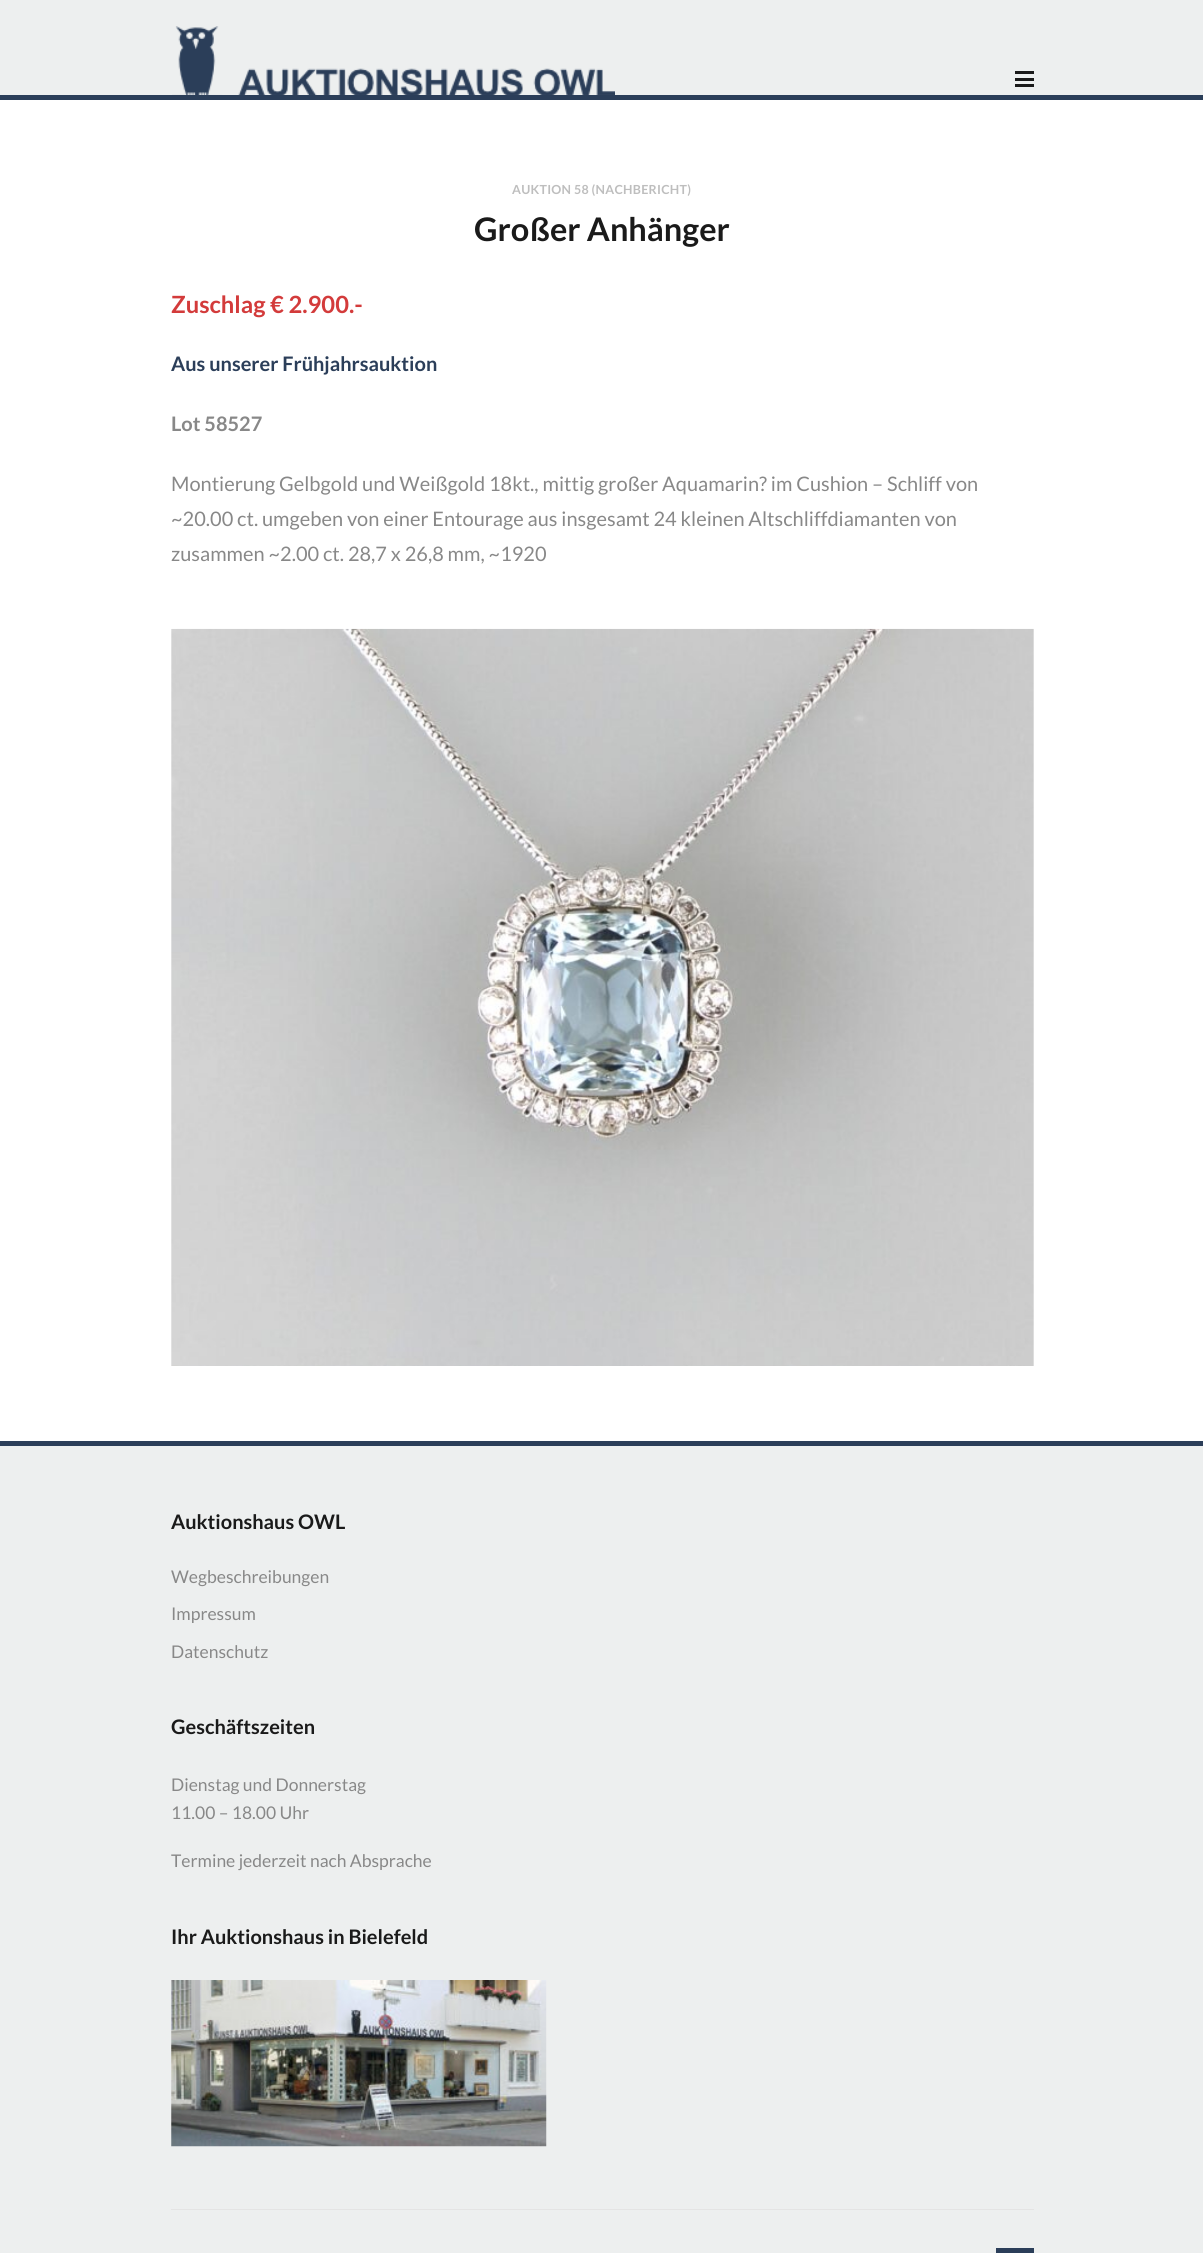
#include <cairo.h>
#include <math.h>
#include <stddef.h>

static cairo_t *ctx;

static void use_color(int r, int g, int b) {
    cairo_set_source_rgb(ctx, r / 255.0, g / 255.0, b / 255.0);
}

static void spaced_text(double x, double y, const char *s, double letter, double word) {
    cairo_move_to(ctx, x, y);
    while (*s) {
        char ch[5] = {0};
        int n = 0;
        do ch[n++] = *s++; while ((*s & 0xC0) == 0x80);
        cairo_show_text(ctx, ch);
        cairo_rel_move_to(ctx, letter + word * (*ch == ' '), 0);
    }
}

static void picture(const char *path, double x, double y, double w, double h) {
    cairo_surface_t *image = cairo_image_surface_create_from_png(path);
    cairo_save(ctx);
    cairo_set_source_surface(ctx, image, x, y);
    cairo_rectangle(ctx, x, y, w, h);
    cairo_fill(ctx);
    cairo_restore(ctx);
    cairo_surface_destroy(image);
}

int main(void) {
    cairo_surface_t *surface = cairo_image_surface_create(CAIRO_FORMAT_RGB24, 1203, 2253);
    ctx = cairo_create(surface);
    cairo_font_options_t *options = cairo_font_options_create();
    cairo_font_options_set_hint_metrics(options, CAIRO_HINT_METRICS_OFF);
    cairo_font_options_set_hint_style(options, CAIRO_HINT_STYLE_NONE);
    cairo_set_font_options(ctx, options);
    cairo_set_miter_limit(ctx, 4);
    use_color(255, 255, 255);
    cairo_paint(ctx);
    use_color(237, 239, 239);
    cairo_rectangle(ctx, 0, 0, 1203, 95);
    cairo_fill(ctx);
    picture("img1.png", 172, 26, 443, 69);
    use_color(26, 26, 26);
    cairo_rectangle(ctx, 1015, 71, 19, 3);
    cairo_fill(ctx);
    cairo_rectangle(ctx, 1015, 78, 19, 3);
    cairo_fill(ctx);
    cairo_rectangle(ctx, 1015, 84, 19, 3);
    cairo_fill(ctx);
    use_color(43, 62, 89);
    cairo_rectangle(ctx, 0, 95, 1203, 5);
    cairo_fill(ctx);
    cairo_select_font_face(ctx, "Lato", CAIRO_FONT_SLANT_NORMAL, CAIRO_FONT_WEIGHT_BOLD);
    cairo_set_font_size(ctx, 12.5);
    use_color(190, 190, 190);
    spaced_text(512, 194, "AUKTION 58 (NACHBERICHT)", 0.25, 0);
    cairo_set_font_size(ctx, 32.5);
    use_color(26, 26, 26);
    cairo_move_to(ctx, 474, 241);
    cairo_show_text(ctx, "Großer Anhänger");
    cairo_set_font_size(ctx, 23.75);
    use_color(211, 59, 59);
    cairo_move_to(ctx, 171, 313);
    cairo_show_text(ctx, "Zuschlag € 2.900.-");
    cairo_set_font_size(ctx, 20);
    use_color(43, 62, 89);
    cairo_move_to(ctx, 171, 371);
    cairo_show_text(ctx, "Aus unserer Frühjahrsauktion");
    use_color(136, 136, 136);
    cairo_move_to(ctx, 171, 431);
    cairo_show_text(ctx, "Lot 58527");
    cairo_select_font_face(ctx, "Lato", CAIRO_FONT_SLANT_NORMAL, CAIRO_FONT_WEIGHT_NORMAL);
    cairo_move_to(ctx, 171, 491);
    cairo_show_text(ctx, "Montierung Gelbgold und Weißgold 18kt., mittig großer Aquamarin? im Cushion – Schliff von");
    cairo_move_to(ctx, 171, 526);
    cairo_show_text(ctx, "~20.00 ct. umgeben von einer Entourage aus insgesamt 24 kleinen Altschliffdiamanten von");
    cairo_move_to(ctx, 171, 561);
    cairo_show_text(ctx, "zusammen ~2.00 ct. 28,7 x 26,8 mm, ~1920");
    use_color(241, 241, 241);
    cairo_rectangle(ctx, 171, 629, 863, 737);
    cairo_fill(ctx);
    picture("img2.png", 171, 628, 863, 738);
    use_color(237, 239, 239);
    cairo_rectangle(ctx, 0, 1446, 1203, 807);
    cairo_fill(ctx);
    use_color(43, 62, 89);
    cairo_rectangle(ctx, 0, 1441, 1203, 5);
    cairo_fill(ctx);
    cairo_select_font_face(ctx, "Lato", CAIRO_FONT_SLANT_NORMAL, CAIRO_FONT_WEIGHT_BOLD);
    use_color(26, 26, 26);
    cairo_move_to(ctx, 171, 1529);
    cairo_show_text(ctx, "Auktionshaus OWL");
    cairo_select_font_face(ctx, "Lato", CAIRO_FONT_SLANT_NORMAL, CAIRO_FONT_WEIGHT_NORMAL);
    cairo_set_font_size(ctx, 17.5);
    use_color(136, 136, 136);
    cairo_move_to(ctx, 171, 1583);
    cairo_show_text(ctx, "Wegbeschreibungen");
    cairo_move_to(ctx, 171, 1620);
    cairo_show_text(ctx, "Impressum");
    cairo_move_to(ctx, 171, 1658);
    cairo_show_text(ctx, "Datenschutz");
    cairo_select_font_face(ctx, "Lato", CAIRO_FONT_SLANT_NORMAL, CAIRO_FONT_WEIGHT_BOLD);
    cairo_set_font_size(ctx, 20);
    use_color(26, 26, 26);
    cairo_move_to(ctx, 171, 1734);
    cairo_show_text(ctx, "Geschäftszeiten");
    cairo_select_font_face(ctx, "Lato", CAIRO_FONT_SLANT_NORMAL, CAIRO_FONT_WEIGHT_NORMAL);
    cairo_set_font_size(ctx, 17.5);
    use_color(136, 136, 136);
    cairo_move_to(ctx, 171, 1791);
    cairo_show_text(ctx, "Dienstag und Donnerstag");
    cairo_move_to(ctx, 171, 1819);
    cairo_show_text(ctx, "11.00 – 18.00 Uhr");
    cairo_move_to(ctx, 171, 1867);
    cairo_show_text(ctx, "Termine jederzeit nach Absprache");
    cairo_select_font_face(ctx, "Lato", CAIRO_FONT_SLANT_NORMAL, CAIRO_FONT_WEIGHT_BOLD);
    cairo_set_font_size(ctx, 20);
    use_color(26, 26, 26);
    cairo_move_to(ctx, 171, 1944);
    cairo_show_text(ctx, "Ihr Auktionshaus in Bielefeld");
    picture("img3.png", 171, 1980, 376, 167);
    use_color(228, 228, 228);
    cairo_rectangle(ctx, 171, 2209, 863, 1);
    cairo_fill(ctx);
    use_color(43, 62, 89);
    cairo_rectangle(ctx, 996, 2248, 38, 5);
    cairo_fill(ctx);
    cairo_surface_write_to_png(surface, "result.png");
    cairo_font_options_destroy(options);
    cairo_destroy(ctx);
    cairo_surface_destroy(surface);
    return 0;
}
